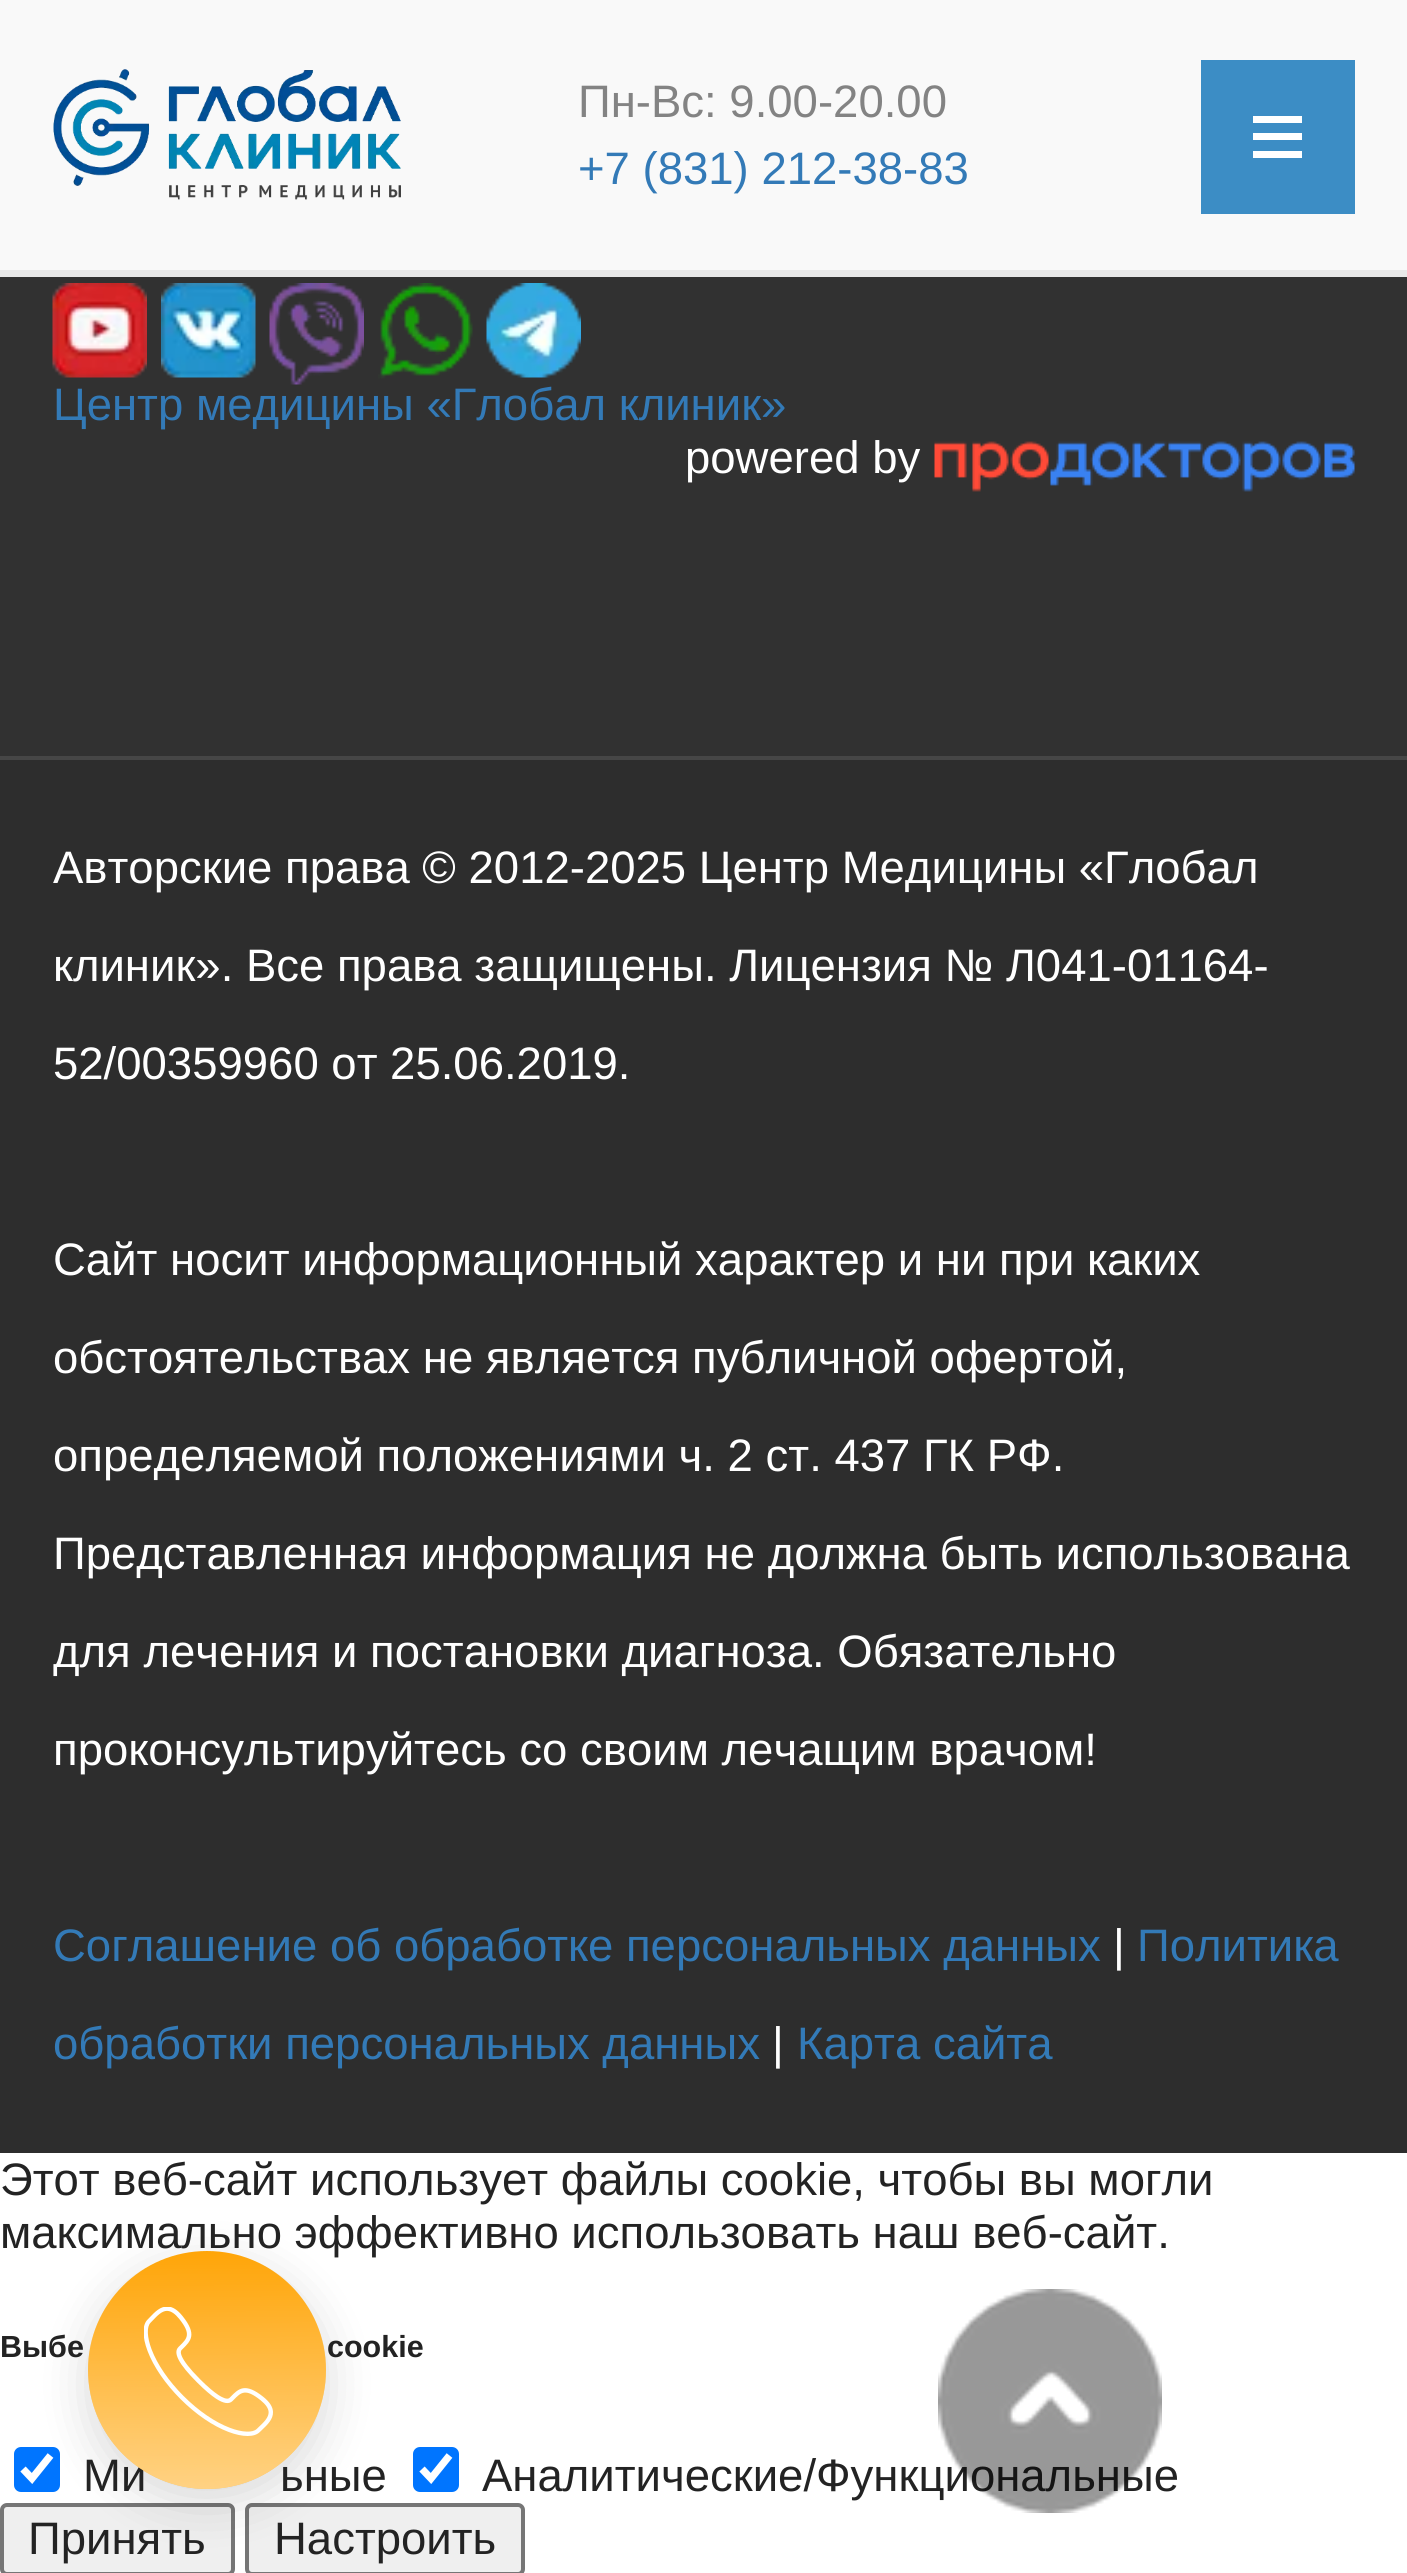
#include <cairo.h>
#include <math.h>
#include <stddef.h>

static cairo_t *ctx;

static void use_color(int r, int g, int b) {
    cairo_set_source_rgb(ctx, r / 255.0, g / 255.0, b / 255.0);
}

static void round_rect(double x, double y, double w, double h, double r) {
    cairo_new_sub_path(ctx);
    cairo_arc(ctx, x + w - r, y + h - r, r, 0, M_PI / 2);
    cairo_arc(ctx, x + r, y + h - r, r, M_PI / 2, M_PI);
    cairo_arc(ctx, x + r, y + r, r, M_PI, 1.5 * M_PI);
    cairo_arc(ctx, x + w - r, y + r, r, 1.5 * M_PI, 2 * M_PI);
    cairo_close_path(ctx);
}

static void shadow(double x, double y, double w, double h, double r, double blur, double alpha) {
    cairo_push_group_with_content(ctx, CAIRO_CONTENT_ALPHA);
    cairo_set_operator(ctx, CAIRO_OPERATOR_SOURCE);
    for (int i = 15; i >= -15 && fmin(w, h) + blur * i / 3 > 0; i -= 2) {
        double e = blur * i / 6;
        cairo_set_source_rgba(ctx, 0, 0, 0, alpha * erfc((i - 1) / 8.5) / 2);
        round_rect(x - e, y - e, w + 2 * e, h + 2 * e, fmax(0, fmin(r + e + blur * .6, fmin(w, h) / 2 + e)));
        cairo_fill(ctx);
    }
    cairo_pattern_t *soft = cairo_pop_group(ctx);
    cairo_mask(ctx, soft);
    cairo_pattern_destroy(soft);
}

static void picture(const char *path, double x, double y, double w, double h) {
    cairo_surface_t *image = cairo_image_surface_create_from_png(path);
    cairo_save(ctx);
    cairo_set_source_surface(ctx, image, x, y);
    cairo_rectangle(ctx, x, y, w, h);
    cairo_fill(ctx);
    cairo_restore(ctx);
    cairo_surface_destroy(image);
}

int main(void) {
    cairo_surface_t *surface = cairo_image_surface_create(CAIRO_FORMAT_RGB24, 1407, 2573);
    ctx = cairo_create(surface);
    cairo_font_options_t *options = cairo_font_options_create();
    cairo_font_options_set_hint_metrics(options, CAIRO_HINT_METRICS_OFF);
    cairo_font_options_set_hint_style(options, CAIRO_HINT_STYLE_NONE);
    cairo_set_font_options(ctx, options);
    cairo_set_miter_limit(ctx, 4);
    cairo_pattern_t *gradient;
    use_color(255, 255, 255);
    cairo_paint(ctx);
    use_color(249, 249, 249);
    cairo_rectangle(ctx, 0, 0, 1407, 270);
    cairo_fill(ctx);
    use_color(232, 232, 232);
    cairo_rectangle(ctx, 0, 270, 1407, 7);
    cairo_fill(ctx);
    picture("img1.png", 53, 69, 348, 131);
    cairo_select_font_face(ctx, "Liberation Sans", CAIRO_FONT_SLANT_NORMAL, CAIRO_FONT_WEIGHT_NORMAL);
    cairo_set_font_size(ctx, 45.5);
    use_color(131, 131, 131);
    cairo_move_to(ctx, 578, 117);
    cairo_show_text(ctx, "Пн-Вс: 9.00-20.00");
    use_color(51, 122, 183);
    cairo_move_to(ctx, 578, 184);
    cairo_show_text(ctx, "+7 (831) 212-38-83");
    use_color(60, 141, 197);
    cairo_rectangle(ctx, 1201, 60, 154, 154);
    cairo_fill(ctx);
    use_color(255, 255, 255);
    cairo_rectangle(ctx, 1253, 116, 49, 7);
    cairo_fill(ctx);
    cairo_rectangle(ctx, 1253, 133, 49, 7);
    cairo_fill(ctx);
    cairo_rectangle(ctx, 1253, 151, 49, 7);
    cairo_fill(ctx);
    use_color(49, 49, 49);
    cairo_rectangle(ctx, 0, 277, 1407, 479);
    cairo_fill(ctx);
    use_color(70, 70, 70);
    cairo_rectangle(ctx, 0, 756, 1407, 4);
    cairo_fill(ctx);
    picture("img2.png", 52, 283, 95, 95);
    picture("img3.png", 161, 283, 95, 95);
    picture("img4.png", 269, 283, 95, 102);
    picture("img5.png", 378, 283, 95, 96);
    picture("img6.png", 486, 283, 95, 95);
    use_color(51, 122, 183);
    cairo_move_to(ctx, 53, 420);
    cairo_show_text(ctx, "Центр медицины «Глобал клиник»");
    use_color(255, 255, 255);
    cairo_move_to(ctx, 685, 473);
    cairo_show_text(ctx, "powered by");
    picture("img7.png", 934, 441, 421, 51);
    use_color(45, 45, 45);
    cairo_rectangle(ctx, 0, 760, 1407, 1393);
    cairo_fill(ctx);
    use_color(255, 255, 255);
    cairo_move_to(ctx, 53, 883);
    cairo_show_text(ctx, "Авторские права © 2012-2025 Центр Медицины «Глобал");
    cairo_move_to(ctx, 53, 981);
    cairo_show_text(ctx, "клиник». Все права защищены. Лицензия № Л041-01164-");
    cairo_move_to(ctx, 53, 1079);
    cairo_show_text(ctx, "52/00359960 от 25.06.2019.");
    cairo_move_to(ctx, 53, 1275);
    cairo_show_text(ctx, "Сайт носит информационный характер и ни при каких");
    cairo_move_to(ctx, 53, 1373);
    cairo_show_text(ctx, "обстоятельствах не является публичной офертой,");
    cairo_move_to(ctx, 53, 1471);
    cairo_show_text(ctx, "определяемой положениями ч. 2 ст. 437 ГК РФ.");
    cairo_move_to(ctx, 53, 1569);
    cairo_show_text(ctx, "Представленная информация не должна быть использована");
    cairo_move_to(ctx, 53, 1667);
    cairo_show_text(ctx, "для лечения и постановки диагноза. Обязательно");
    cairo_move_to(ctx, 53, 1765);
    cairo_show_text(ctx, "проконсультируйтесь со своим лечащим врачом!");
    use_color(51, 122, 183);
    cairo_move_to(ctx, 53, 1961);
    cairo_show_text(ctx, "Соглашение об обработке персональных данных");
    use_color(255, 255, 255);
    cairo_move_to(ctx, 1113, 1961);
    cairo_show_text(ctx, "|");
    use_color(51, 122, 183);
    cairo_move_to(ctx, 1137, 1961);
    cairo_show_text(ctx, "Политика");
    cairo_move_to(ctx, 53, 2059);
    cairo_show_text(ctx, "обработки персональных данных");
    use_color(255, 255, 255);
    cairo_move_to(ctx, 772, 2059);
    cairo_show_text(ctx, "|");
    use_color(51, 122, 183);
    cairo_move_to(ctx, 797, 2059);
    cairo_show_text(ctx, "Карта сайта");
    use_color(0, 117, 255);
    round_rect(14, 2447, 46, 45, 7);
    cairo_fill(ctx);
    cairo_new_path(ctx);
    cairo_move_to(ctx, 23, 2469);
    cairo_line_to(ctx, 32, 2478.5);
    cairo_line_to(ctx, 50.5, 2455.5);
    use_color(255, 255, 255);
    cairo_set_line_width(ctx, 7.3);
    cairo_stroke(ctx);
    use_color(239, 239, 239);
    round_rect(2, 2505, 231, 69, 5);
    cairo_fill_preserve(ctx);
    use_color(118, 118, 118);
    cairo_set_line_width(ctx, 4);
    cairo_stroke(ctx);
    use_color(239, 239, 239);
    round_rect(247, 2505, 276, 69, 5);
    cairo_fill_preserve(ctx);
    use_color(118, 118, 118);
    cairo_stroke(ctx);
    use_color(0, 0, 0);
    shadow(88, 2265, 238, 238, 119, 24.5, 0.15);
    use_color(35, 35, 35);
    cairo_move_to(ctx, 0, 2248);
    cairo_show_text(ctx, "максимально эффективно использовать наш веб-сайт.");
    cairo_move_to(ctx, 83, 2491);
    cairo_show_text(ctx, "Ми");
    cairo_move_to(ctx, 280, 2491);
    cairo_show_text(ctx, "ьные");
    use_color(255, 165, 8);
    cairo_new_path(ctx);
    cairo_arc(ctx, 207, 2370, 119, 0, 2 * M_PI);
    cairo_fill(ctx);
    gradient = cairo_pattern_create_linear(206, 2251, 207, 2489);
    cairo_pattern_add_color_stop_rgba(gradient, 0, 1, 1, 1, 0);
    cairo_pattern_add_color_stop_rgba(gradient, 1, 1, 1, 1, 0.5);
    cairo_set_source(ctx, gradient);
    cairo_pattern_destroy(gradient);
    cairo_arc(ctx, 207, 2370, 119, 0, 2 * M_PI);
    cairo_fill(ctx);
    picture("img8.png", 144, 2307, 129, 129);
    use_color(35, 35, 35);
    cairo_move_to(ctx, 482, 2491);
    cairo_show_text(ctx, "Аналитические/Функциональные");
    picture("img9.png", 938, 2289, 224, 224);
    cairo_move_to(ctx, 0, 2195);
    cairo_show_text(ctx, "Этот веб-сайт использует файлы cookie, чтобы вы могли");
    cairo_select_font_face(ctx, "Liberation Sans", CAIRO_FONT_SLANT_NORMAL, CAIRO_FONT_WEIGHT_BOLD);
    cairo_set_font_size(ctx, 30.5);
    cairo_move_to(ctx, 0, 2357);
    cairo_show_text(ctx, "Выбе");
    cairo_move_to(ctx, 327, 2357);
    cairo_show_text(ctx, "cookie");
    use_color(0, 117, 255);
    round_rect(413, 2447, 46, 45, 7);
    cairo_fill(ctx);
    cairo_new_path(ctx);
    cairo_move_to(ctx, 422, 2469);
    cairo_line_to(ctx, 431, 2478.5);
    cairo_line_to(ctx, 449.5, 2455.5);
    use_color(255, 255, 255);
    cairo_set_line_width(ctx, 7.3);
    cairo_stroke(ctx);
    cairo_select_font_face(ctx, "Liberation Sans", CAIRO_FONT_SLANT_NORMAL, CAIRO_FONT_WEIGHT_NORMAL);
    cairo_set_font_size(ctx, 45.5);
    use_color(35, 35, 35);
    cairo_move_to(ctx, 28, 2554);
    cairo_show_text(ctx, "Принять");
    cairo_move_to(ctx, 274, 2554);
    cairo_show_text(ctx, "Настроить");
    cairo_surface_write_to_png(surface, "result.png");
    cairo_font_options_destroy(options);
    cairo_destroy(ctx);
    cairo_surface_destroy(surface);
    return 0;
}
